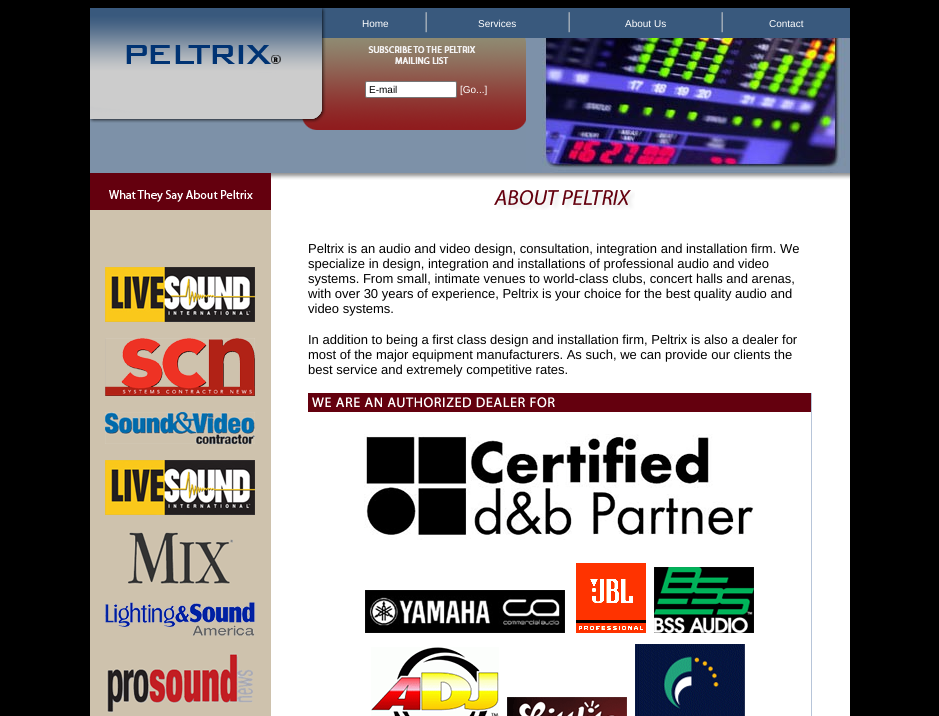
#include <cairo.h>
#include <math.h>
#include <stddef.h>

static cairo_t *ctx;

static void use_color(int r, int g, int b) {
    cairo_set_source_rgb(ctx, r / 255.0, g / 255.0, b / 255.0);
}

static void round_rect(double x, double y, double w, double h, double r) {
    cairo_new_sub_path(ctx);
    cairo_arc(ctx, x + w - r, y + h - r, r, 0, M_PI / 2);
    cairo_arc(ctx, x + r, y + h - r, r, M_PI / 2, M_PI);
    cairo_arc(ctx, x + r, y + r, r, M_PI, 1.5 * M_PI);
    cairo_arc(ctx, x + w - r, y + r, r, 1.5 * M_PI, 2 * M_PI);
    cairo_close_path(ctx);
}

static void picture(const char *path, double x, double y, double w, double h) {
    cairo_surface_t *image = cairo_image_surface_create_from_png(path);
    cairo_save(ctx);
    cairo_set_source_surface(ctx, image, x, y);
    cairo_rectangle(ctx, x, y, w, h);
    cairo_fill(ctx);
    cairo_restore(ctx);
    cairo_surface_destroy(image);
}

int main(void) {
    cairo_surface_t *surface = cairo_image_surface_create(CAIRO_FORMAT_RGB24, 939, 716);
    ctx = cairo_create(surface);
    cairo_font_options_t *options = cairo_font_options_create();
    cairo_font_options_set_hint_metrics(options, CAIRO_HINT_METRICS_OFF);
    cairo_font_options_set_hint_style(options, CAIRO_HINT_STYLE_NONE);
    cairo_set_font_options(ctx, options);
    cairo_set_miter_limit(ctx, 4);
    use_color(0, 0, 0);
    cairo_paint(ctx);
    picture("img1.png", 90, 8, 237, 30);
    use_color(57, 89, 125);
    cairo_rectangle(ctx, 327, 8, 523, 30);
    cairo_fill(ctx);
    cairo_select_font_face(ctx, "Liberation Sans", CAIRO_FONT_SLANT_NORMAL, CAIRO_FONT_WEIGHT_NORMAL);
    cairo_set_font_size(ctx, 10);
    use_color(255, 255, 255);
    cairo_move_to(ctx, 362, 27);
    cairo_show_text(ctx, "Home");
    picture("img2.png", 425, 12, 2, 21);
    cairo_move_to(ctx, 478, 27);
    cairo_show_text(ctx, "Services");
    picture("img2.png", 568, 12, 2, 21);
    cairo_move_to(ctx, 625, 27);
    cairo_show_text(ctx, "About Us");
    picture("img2.png", 721, 12, 2, 21);
    cairo_move_to(ctx, 769, 27);
    cairo_show_text(ctx, "Contact");
    picture("img3.png", 90, 38, 237, 33);
    picture("img4.png", 327, 38, 199, 33);
    picture("img5.png", 526, 38, 324, 135);
    picture("img6.png", 90, 71, 237, 102);
    picture("img7.png", 327, 71, 199, 102);
    round_rect(365.5, 81.5, 91, 16, 1.5);
    cairo_fill_preserve(ctx);
    use_color(118, 118, 118);
    cairo_set_line_width(ctx, 1);
    cairo_stroke(ctx);
    use_color(0, 0, 0);
    cairo_move_to(ctx, 369, 93);
    cairo_show_text(ctx, "E-mail");
    use_color(255, 255, 255);
    cairo_move_to(ctx, 460, 93);
    cairo_show_text(ctx, "[Go...]");
    use_color(100, 0, 14);
    cairo_rectangle(ctx, 90, 173, 181, 7);
    cairo_fill(ctx);
    picture("img8.png", 271, 173, 579, 7);
    picture("img9.png", 90, 180, 181, 30);
    use_color(255, 255, 255);
    cairo_rectangle(ctx, 271, 180, 579, 536);
    cairo_fill(ctx);
    picture("img10.png", 494, 190, 141, 20);
    use_color(206, 194, 173);
    cairo_rectangle(ctx, 90, 210, 181, 506);
    cairo_fill(ctx);
    picture("img11.png", 105, 267, 150, 55);
    picture("img12.png", 105, 338, 150, 58);
    picture("img13.png", 105, 412, 150, 32);
    picture("img11.png", 105, 460, 150, 55);
    picture("img14.png", 128, 532, 105, 53);
    picture("img15.png", 105, 602, 150, 34);
    picture("img16.png", 106, 653, 147, 60);
    cairo_set_font_size(ctx, 13);
    use_color(0, 0, 0);
    cairo_move_to(ctx, 308, 253);
    cairo_show_text(ctx, "Peltrix is an audio and video design, consultation, integration and installation firm. We");
    cairo_move_to(ctx, 308, 268);
    cairo_show_text(ctx, "specialize in design, integration and installations of professional audio and video");
    cairo_move_to(ctx, 308, 283);
    cairo_show_text(ctx, "systems. From small, intimate venues to world-class clubs, concert halls and arenas,");
    cairo_move_to(ctx, 308, 298);
    cairo_show_text(ctx, "with over 30 years of experience, Peltrix is your choice for the best quality audio and");
    cairo_move_to(ctx, 308, 313);
    cairo_show_text(ctx, "video systems.");
    cairo_move_to(ctx, 308, 344);
    cairo_show_text(ctx, "In addition to being a first class design and installation firm, Peltrix is also a dealer for");
    cairo_move_to(ctx, 308, 359);
    cairo_show_text(ctx, "most of the major equipment manufacturers. As such, we can provide our clients the");
    cairo_move_to(ctx, 308, 374);
    cairo_show_text(ctx, "best service and extremely competitive rates.");
    use_color(100, 0, 14);
    cairo_rectangle(ctx, 308, 393, 503, 19);
    cairo_fill(ctx);
    picture("img17.png", 312, 397, 243, 11);
    use_color(183, 197, 217);
    cairo_rectangle(ctx, 811, 393, 1, 323);
    cairo_fill(ctx);
    picture("img18.png", 364, 434, 390, 106);
    picture("img19.png", 365, 590, 200, 43);
    picture("img20.png", 576, 563, 70, 70);
    picture("img21.png", 654, 567, 100, 66);
    picture("img22.png", 371, 647, 128, 69);
    picture("img23.png", 507, 697, 120, 19);
    picture("img24.png", 635, 644, 110, 72);
    cairo_surface_write_to_png(surface, "result.png");
    cairo_font_options_destroy(options);
    cairo_destroy(ctx);
    cairo_surface_destroy(surface);
    return 0;
}
